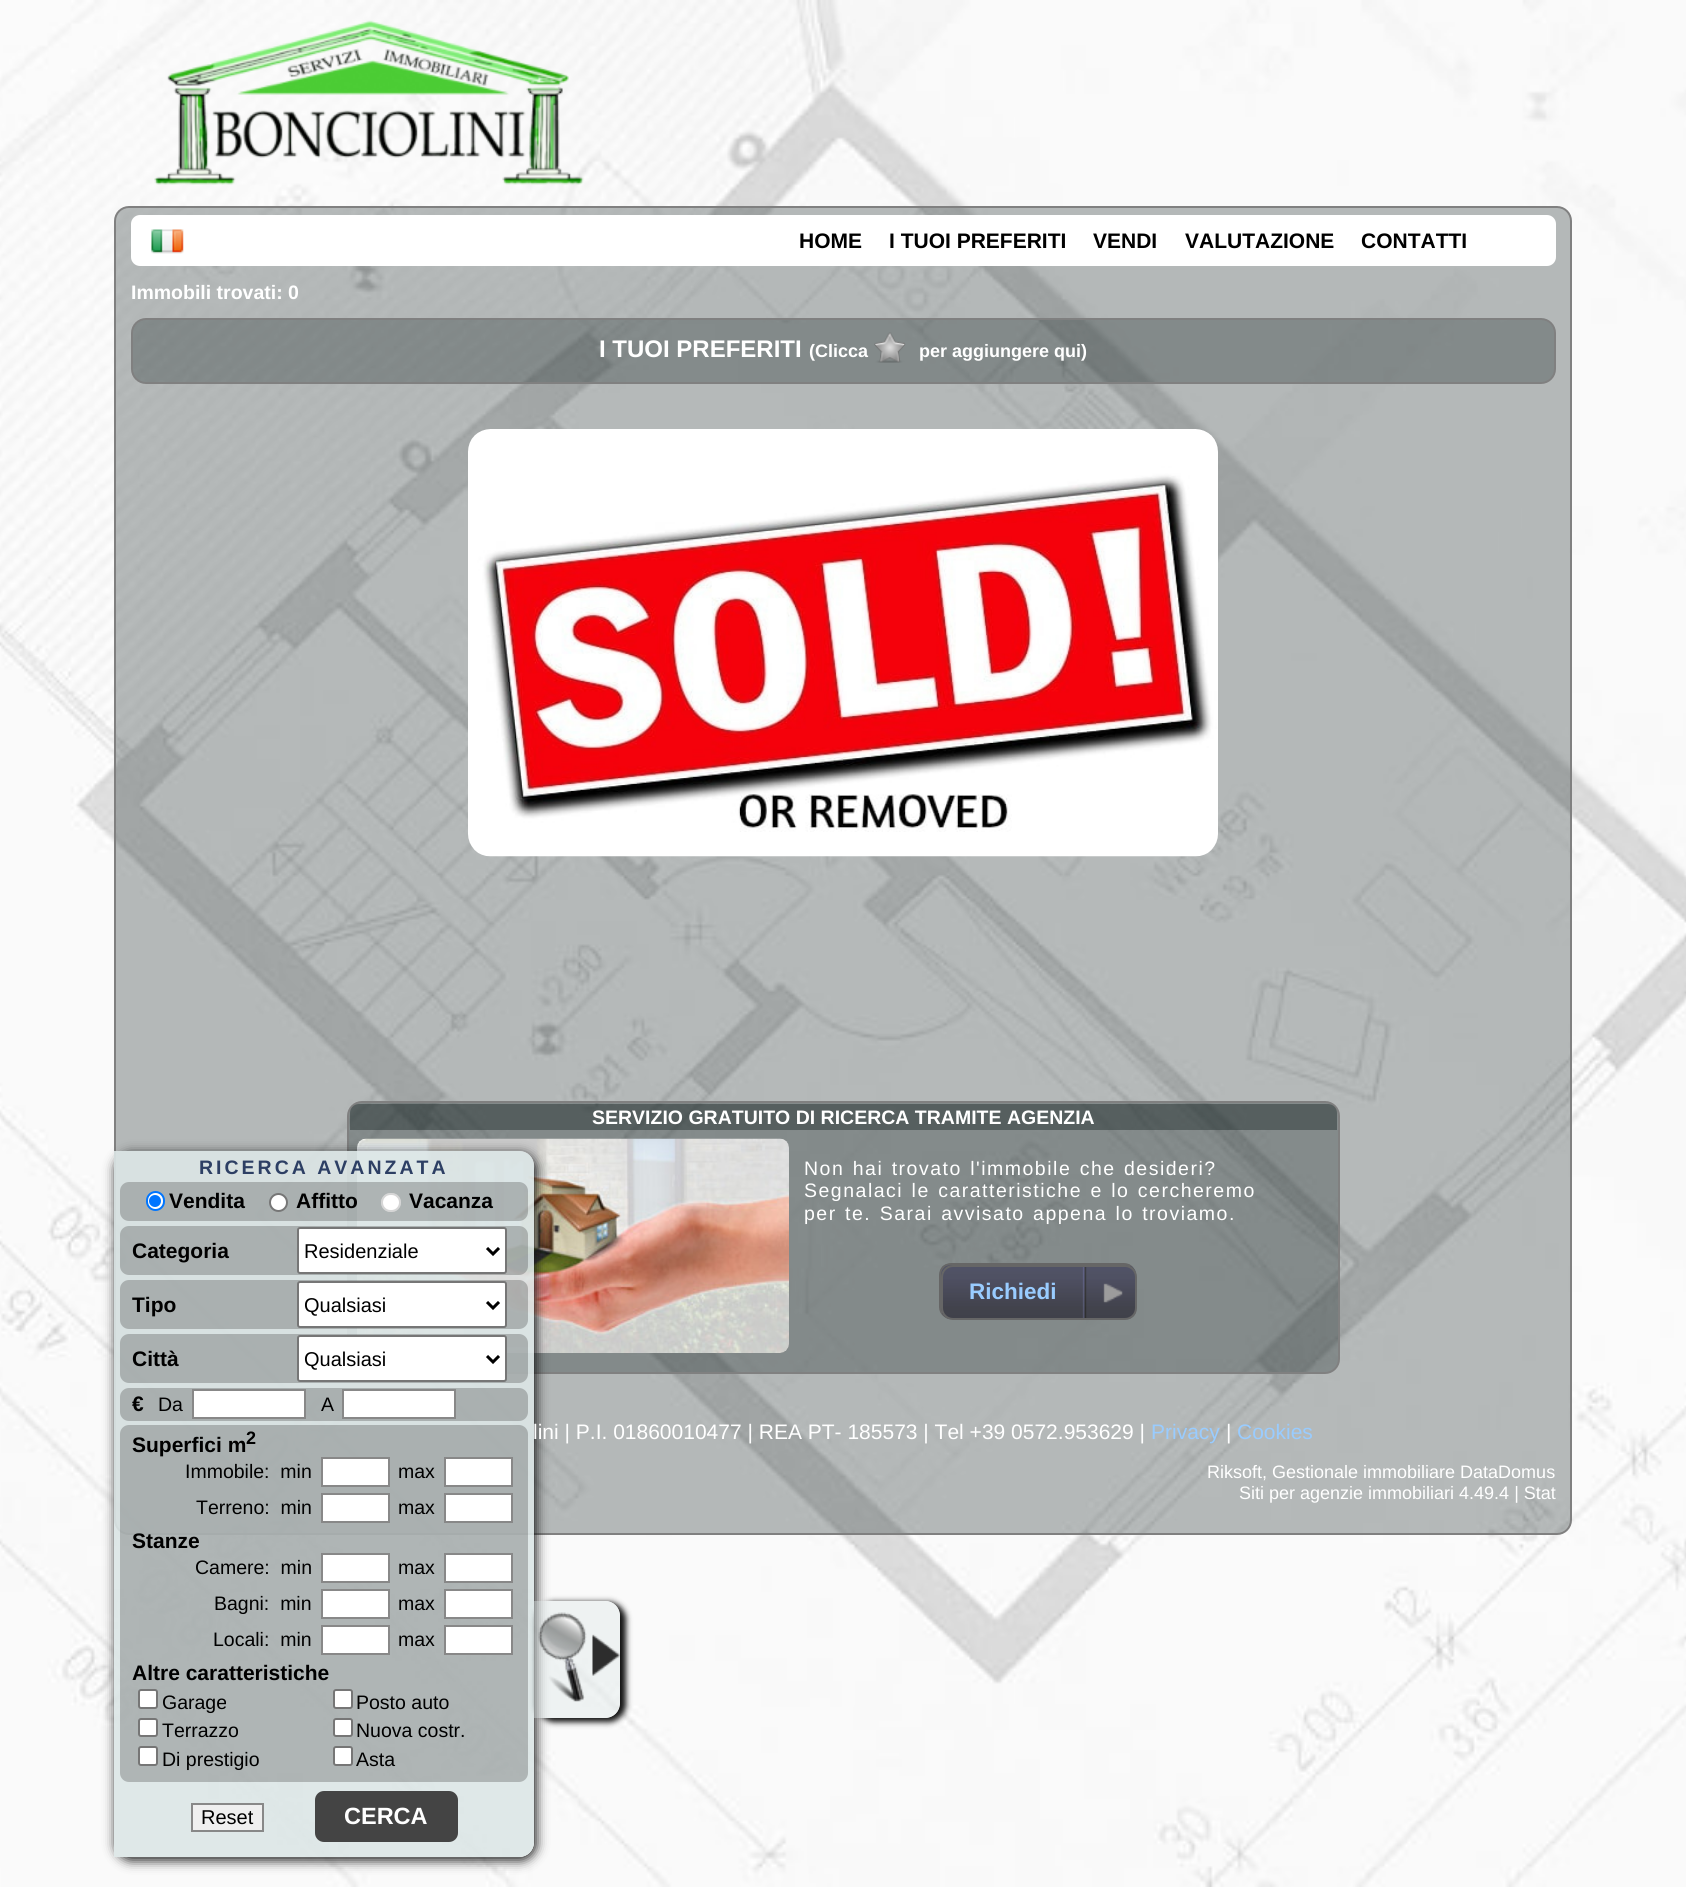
#include <cairo.h>
#include <math.h>
#include <stddef.h>

static cairo_t *ctx;

static void use_color(int r, int g, int b) {
    cairo_set_source_rgb(ctx, r / 255.0, g / 255.0, b / 255.0);
}

static void spaced_text(double x, double y, const char *s, double letter, double word) {
    cairo_move_to(ctx, x, y);
    while (*s) {
        char ch[5] = {0};
        int n = 0;
        do ch[n++] = *s++; while ((*s & 0xC0) == 0x80);
        cairo_show_text(ctx, ch);
        cairo_rel_move_to(ctx, letter + word * (*ch == ' '), 0);
    }
}

static void round_rect(double x, double y, double w, double h, double r) {
    cairo_new_sub_path(ctx);
    cairo_arc(ctx, x + w - r, y + h - r, r, 0, M_PI / 2);
    cairo_arc(ctx, x + r, y + h - r, r, M_PI / 2, M_PI);
    cairo_arc(ctx, x + r, y + r, r, M_PI, 1.5 * M_PI);
    cairo_arc(ctx, x + w - r, y + r, r, 1.5 * M_PI, 2 * M_PI);
    cairo_close_path(ctx);
}

static void shadow(double x, double y, double w, double h, double r, double blur, double alpha) {
    cairo_push_group_with_content(ctx, CAIRO_CONTENT_ALPHA);
    cairo_set_operator(ctx, CAIRO_OPERATOR_SOURCE);
    for (int i = 15; i >= -15 && fmin(w, h) + blur * i / 3 > 0; i -= 2) {
        double e = blur * i / 6;
        cairo_set_source_rgba(ctx, 0, 0, 0, alpha * erfc((i - 1) / 8.5) / 2);
        round_rect(x - e, y - e, w + 2 * e, h + 2 * e, fmax(0, fmin(r + e + blur * .6, fmin(w, h) / 2 + e)));
        cairo_fill(ctx);
    }
    cairo_pattern_t *soft = cairo_pop_group(ctx);
    cairo_mask(ctx, soft);
    cairo_pattern_destroy(soft);
}

static void picture(const char *path, double x, double y, double w, double h) {
    cairo_surface_t *image = cairo_image_surface_create_from_png(path);
    cairo_save(ctx);
    cairo_set_source_surface(ctx, image, x, y);
    cairo_rectangle(ctx, x, y, w, h);
    cairo_fill(ctx);
    cairo_restore(ctx);
    cairo_surface_destroy(image);
}

int main(void) {
    cairo_surface_t *surface = cairo_image_surface_create(CAIRO_FORMAT_RGB24, 1686, 1887);
    ctx = cairo_create(surface);
    cairo_font_options_t *options = cairo_font_options_create();
    cairo_font_options_set_hint_metrics(options, CAIRO_HINT_METRICS_OFF);
    cairo_font_options_set_hint_style(options, CAIRO_HINT_STYLE_NONE);
    cairo_set_font_options(ctx, options);
    cairo_set_miter_limit(ctx, 4);
    use_color(255, 255, 255);
    cairo_paint(ctx);
    picture("img1.png", 0, 0, 1686, 1887);
    picture("img2.png", 154, 20, 430, 165);
    cairo_set_source_rgba(ctx, 0.078, 0.118, 0.118, 0.3);
    round_rect(115, 207, 1456, 1327, 14);
    cairo_fill_preserve(ctx);
    use_color(128, 128, 128);
    cairo_stroke(ctx);
    use_color(255, 255, 255);
    round_rect(131, 215, 1425, 51, 9);
    cairo_fill(ctx);
    picture("img3.png", 151, 229, 33, 25);
    cairo_select_font_face(ctx, "Liberation Sans", CAIRO_FONT_SLANT_NORMAL, CAIRO_FONT_WEIGHT_BOLD);
    cairo_set_font_size(ctx, 21);
    use_color(0, 0, 0);
    cairo_move_to(ctx, 799, 248);
    cairo_show_text(ctx, "HOME");
    cairo_move_to(ctx, 889, 248);
    cairo_show_text(ctx, "I TUOI PREFERITI");
    cairo_move_to(ctx, 1093, 248);
    cairo_show_text(ctx, "VENDI");
    cairo_move_to(ctx, 1185, 248);
    cairo_show_text(ctx, "VALUTAZIONE");
    cairo_move_to(ctx, 1361, 248);
    cairo_show_text(ctx, "CONTATTI");
    cairo_set_font_size(ctx, 19.5);
    use_color(255, 255, 255);
    cairo_move_to(ctx, 131, 299);
    cairo_show_text(ctx, "Immobili trovati: 0");
    cairo_set_source_rgba(ctx, 0.078, 0.118, 0.118, 0.3);
    round_rect(132, 319, 1423, 64, 14);
    cairo_fill_preserve(ctx);
    use_color(128, 128, 128);
    cairo_stroke(ctx);
    cairo_set_font_size(ctx, 24);
    use_color(255, 255, 255);
    cairo_move_to(ctx, 599, 357);
    cairo_show_text(ctx, "I TUOI PREFERITI");
    cairo_set_font_size(ctx, 18);
    cairo_move_to(ctx, 809, 357);
    cairo_show_text(ctx, "(Clicca");
    picture("img4.png", 874, 332, 32, 31);
    cairo_move_to(ctx, 919, 357);
    cairo_show_text(ctx, "per aggiungere qui)");
    picture("img5.png", 468, 429, 750, 428);
    cairo_set_source_rgba(ctx, 0.078, 0.118, 0.118, 0.3);
    round_rect(348, 1102, 991, 271, 14);
    cairo_fill_preserve(ctx);
    use_color(128, 128, 128);
    cairo_stroke(ctx);
    cairo_set_source_rgba(ctx, 0.235, 0.235, 0.235, 0.3);
    round_rect(357, 1139, 432, 214, 9);
    cairo_fill(ctx);
    picture("img7.png", 357, 1138, 432, 215);
    cairo_save(ctx);
    cairo_set_fill_rule(ctx, CAIRO_FILL_RULE_EVEN_ODD);
    cairo_new_path(ctx);
    cairo_move_to(ctx, 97, 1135);
    cairo_line_to(ctx, 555, 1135);
    cairo_line_to(ctx, 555, 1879);
    cairo_line_to(ctx, 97, 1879);
    cairo_close_path(ctx);
    cairo_move_to(ctx, 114, 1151);
    cairo_line_to(ctx, 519, 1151);
    cairo_curve_to(ctx, 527.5, 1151, 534, 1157.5, 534, 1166);
    cairo_line_to(ctx, 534, 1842);
    cairo_curve_to(ctx, 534, 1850.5, 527.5, 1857, 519, 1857);
    cairo_line_to(ctx, 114, 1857);
    cairo_close_path(ctx);
    cairo_clip(ctx);
    use_color(17, 17, 17);
    shadow(116, 1154, 420, 706, 15, 6, 1);
    cairo_restore(ctx);
    cairo_set_source_rgba(ctx, 0.863, 0.902, 0.902, 0.9);
    cairo_new_path(ctx);
    cairo_move_to(ctx, 114, 1151);
    cairo_line_to(ctx, 519, 1151);
    cairo_curve_to(ctx, 527.5, 1151, 534, 1157.5, 534, 1166);
    cairo_line_to(ctx, 534, 1842);
    cairo_curve_to(ctx, 534, 1850.5, 527.5, 1857, 519, 1857);
    cairo_line_to(ctx, 114, 1857);
    cairo_close_path(ctx);
    cairo_fill(ctx);
    cairo_set_font_size(ctx, 19.5);
    use_color(45, 63, 100);
    spaced_text(199, 1174, "RICERCA AVANZATA", 3, 0);
    cairo_set_source_rgba(ctx, 0.235, 0.235, 0.235, 0.3);
    round_rect(120, 1182, 408, 39, 9);
    cairo_fill(ctx);
    use_color(255, 255, 255);
    round_rect(147, 1192, 17, 18, 8.5);
    cairo_fill_preserve(ctx);
    use_color(0, 117, 255);
    cairo_stroke(ctx);
    cairo_arc(ctx, 155, 1201, 6, 0, 2 * M_PI);
    cairo_fill(ctx);
    cairo_set_font_size(ctx, 21);
    use_color(0, 0, 0);
    cairo_move_to(ctx, 169, 1208);
    cairo_show_text(ctx, "Vendita");
    use_color(255, 255, 255);
    cairo_new_path(ctx);
    cairo_arc(ctx, 278.5, 1202.5, 8.5, 0, 2 * M_PI);
    cairo_fill_preserve(ctx);
    use_color(118, 118, 118);
    cairo_stroke(ctx);
    use_color(0, 0, 0);
    cairo_move_to(ctx, 296, 1208);
    cairo_show_text(ctx, "Affitto");
    use_color(255, 255, 255);
    round_rect(381, 1193, 20, 19, 9.5);
    cairo_fill(ctx);
    round_rect(382, 1194, 18, 17, 8.5);
    cairo_set_source_rgba(ctx, 0.463, 0.463, 0.463, 0.3);
    cairo_stroke(ctx);
    use_color(0, 0, 0);
    cairo_move_to(ctx, 409, 1208);
    cairo_show_text(ctx, "Vacanza");
    cairo_set_source_rgba(ctx, 0.235, 0.235, 0.235, 0.3);
    round_rect(120, 1226, 408, 49, 9);
    cairo_fill(ctx);
    use_color(0, 0, 0);
    cairo_move_to(ctx, 132, 1258);
    cairo_show_text(ctx, "Categoria");
    use_color(255, 255, 255);
    round_rect(298, 1228, 208, 45, 2);
    cairo_fill_preserve(ctx);
    use_color(118, 118, 118);
    cairo_stroke(ctx);
    cairo_new_path(ctx);
    cairo_move_to(ctx, 487, 1248);
    cairo_line_to(ctx, 493, 1254);
    cairo_line_to(ctx, 499, 1248);
    use_color(0, 0, 0);
    cairo_set_line_width(ctx, 3);
    cairo_stroke(ctx);
    cairo_select_font_face(ctx, "Liberation Sans", CAIRO_FONT_SLANT_NORMAL, CAIRO_FONT_WEIGHT_NORMAL);
    cairo_set_font_size(ctx, 20);
    cairo_move_to(ctx, 304, 1258);
    cairo_show_text(ctx, "Residenziale");
    cairo_set_source_rgba(ctx, 0.235, 0.235, 0.235, 0.3);
    round_rect(120, 1280, 408, 49, 9);
    cairo_fill(ctx);
    cairo_select_font_face(ctx, "Liberation Sans", CAIRO_FONT_SLANT_NORMAL, CAIRO_FONT_WEIGHT_BOLD);
    cairo_set_font_size(ctx, 21);
    use_color(0, 0, 0);
    cairo_move_to(ctx, 132, 1312);
    cairo_show_text(ctx, "Tipo");
    use_color(255, 255, 255);
    round_rect(298, 1282, 208, 45, 2);
    cairo_fill_preserve(ctx);
    use_color(118, 118, 118);
    cairo_set_line_width(ctx, 2);
    cairo_stroke(ctx);
    cairo_new_path(ctx);
    cairo_move_to(ctx, 487, 1302);
    cairo_line_to(ctx, 493, 1308);
    cairo_line_to(ctx, 499, 1302);
    use_color(0, 0, 0);
    cairo_set_line_width(ctx, 3);
    cairo_stroke(ctx);
    cairo_select_font_face(ctx, "Liberation Sans", CAIRO_FONT_SLANT_NORMAL, CAIRO_FONT_WEIGHT_NORMAL);
    cairo_set_font_size(ctx, 20);
    cairo_move_to(ctx, 304, 1312);
    cairo_show_text(ctx, "Qualsiasi");
    cairo_set_source_rgba(ctx, 0.235, 0.235, 0.235, 0.3);
    round_rect(120, 1334, 408, 49, 9);
    cairo_fill(ctx);
    cairo_select_font_face(ctx, "Liberation Sans", CAIRO_FONT_SLANT_NORMAL, CAIRO_FONT_WEIGHT_BOLD);
    cairo_set_font_size(ctx, 21);
    use_color(0, 0, 0);
    cairo_move_to(ctx, 132, 1366);
    cairo_show_text(ctx, "Città");
    use_color(255, 255, 255);
    round_rect(298, 1336, 208, 45, 2);
    cairo_fill_preserve(ctx);
    use_color(118, 118, 118);
    cairo_set_line_width(ctx, 2);
    cairo_stroke(ctx);
    cairo_new_path(ctx);
    cairo_move_to(ctx, 487, 1356);
    cairo_line_to(ctx, 493, 1362);
    cairo_line_to(ctx, 499, 1356);
    use_color(0, 0, 0);
    cairo_set_line_width(ctx, 3);
    cairo_stroke(ctx);
    cairo_select_font_face(ctx, "Liberation Sans", CAIRO_FONT_SLANT_NORMAL, CAIRO_FONT_WEIGHT_NORMAL);
    cairo_set_font_size(ctx, 20);
    cairo_move_to(ctx, 304, 1366);
    cairo_show_text(ctx, "Qualsiasi");
    cairo_set_source_rgba(ctx, 0.235, 0.235, 0.235, 0.3);
    round_rect(120, 1388, 408, 33, 9);
    cairo_fill(ctx);
    cairo_select_font_face(ctx, "Liberation Sans", CAIRO_FONT_SLANT_NORMAL, CAIRO_FONT_WEIGHT_BOLD);
    cairo_set_font_size(ctx, 21);
    use_color(0, 0, 0);
    cairo_move_to(ctx, 132, 1411);
    cairo_show_text(ctx, "€");
    cairo_select_font_face(ctx, "Liberation Sans", CAIRO_FONT_SLANT_NORMAL, CAIRO_FONT_WEIGHT_NORMAL);
    cairo_set_font_size(ctx, 19.5);
    cairo_move_to(ctx, 158, 1411);
    cairo_show_text(ctx, "Da");
    use_color(255, 255, 255);
    cairo_rectangle(ctx, 193, 1390, 112, 28);
    cairo_fill_preserve(ctx);
    use_color(136, 136, 136);
    cairo_set_line_width(ctx, 2);
    cairo_stroke(ctx);
    use_color(0, 0, 0);
    cairo_move_to(ctx, 321, 1411);
    cairo_show_text(ctx, "A");
    use_color(255, 255, 255);
    cairo_rectangle(ctx, 343, 1390, 112, 28);
    cairo_fill_preserve(ctx);
    use_color(136, 136, 136);
    cairo_stroke(ctx);
    cairo_set_source_rgba(ctx, 0.235, 0.235, 0.235, 0.3);
    round_rect(120, 1425, 408, 357, 9);
    cairo_fill(ctx);
    cairo_select_font_face(ctx, "Liberation Sans", CAIRO_FONT_SLANT_NORMAL, CAIRO_FONT_WEIGHT_BOLD);
    cairo_set_font_size(ctx, 21);
    use_color(0, 0, 0);
    cairo_move_to(ctx, 132, 1452);
    cairo_show_text(ctx, "Superfici m");
    cairo_set_font_size(ctx, 18);
    cairo_move_to(ctx, 246, 1444);
    cairo_show_text(ctx, "2");
    cairo_select_font_face(ctx, "Liberation Sans", CAIRO_FONT_SLANT_NORMAL, CAIRO_FONT_WEIGHT_NORMAL);
    cairo_set_font_size(ctx, 19.5);
    cairo_move_to(ctx, 185, 1478);
    cairo_show_text(ctx, "Immobile:  min");
    use_color(255, 255, 255);
    cairo_rectangle(ctx, 322, 1458, 67, 28);
    cairo_fill_preserve(ctx);
    use_color(136, 136, 136);
    cairo_stroke(ctx);
    use_color(0, 0, 0);
    cairo_move_to(ctx, 398, 1478);
    cairo_show_text(ctx, "max");
    use_color(255, 255, 255);
    cairo_rectangle(ctx, 445, 1458, 67, 28);
    cairo_fill_preserve(ctx);
    use_color(136, 136, 136);
    cairo_stroke(ctx);
    use_color(0, 0, 0);
    cairo_move_to(ctx, 196, 1514);
    cairo_show_text(ctx, "Terreno:  min");
    use_color(255, 255, 255);
    cairo_rectangle(ctx, 322, 1494, 67, 28);
    cairo_fill_preserve(ctx);
    use_color(136, 136, 136);
    cairo_stroke(ctx);
    use_color(0, 0, 0);
    cairo_move_to(ctx, 398, 1514);
    cairo_show_text(ctx, "max");
    use_color(255, 255, 255);
    cairo_rectangle(ctx, 445, 1494, 67, 28);
    cairo_fill_preserve(ctx);
    use_color(136, 136, 136);
    cairo_stroke(ctx);
    cairo_select_font_face(ctx, "Liberation Sans", CAIRO_FONT_SLANT_NORMAL, CAIRO_FONT_WEIGHT_BOLD);
    cairo_set_font_size(ctx, 21);
    use_color(0, 0, 0);
    cairo_move_to(ctx, 132, 1548);
    cairo_show_text(ctx, "Stanze");
    cairo_select_font_face(ctx, "Liberation Sans", CAIRO_FONT_SLANT_NORMAL, CAIRO_FONT_WEIGHT_NORMAL);
    cairo_set_font_size(ctx, 19.5);
    cairo_move_to(ctx, 195, 1574);
    cairo_show_text(ctx, "Camere:  min");
    use_color(255, 255, 255);
    cairo_rectangle(ctx, 322, 1554, 67, 28);
    cairo_fill_preserve(ctx);
    use_color(136, 136, 136);
    cairo_stroke(ctx);
    use_color(0, 0, 0);
    cairo_move_to(ctx, 398, 1574);
    cairo_show_text(ctx, "max");
    use_color(255, 255, 255);
    cairo_rectangle(ctx, 445, 1554, 67, 28);
    cairo_fill_preserve(ctx);
    use_color(136, 136, 136);
    cairo_stroke(ctx);
    use_color(0, 0, 0);
    cairo_move_to(ctx, 214, 1610);
    cairo_show_text(ctx, "Bagni:  min");
    use_color(255, 255, 255);
    cairo_rectangle(ctx, 322, 1590, 67, 28);
    cairo_fill_preserve(ctx);
    use_color(136, 136, 136);
    cairo_stroke(ctx);
    use_color(0, 0, 0);
    cairo_move_to(ctx, 398, 1610);
    cairo_show_text(ctx, "max");
    use_color(255, 255, 255);
    cairo_rectangle(ctx, 445, 1590, 67, 28);
    cairo_fill_preserve(ctx);
    use_color(136, 136, 136);
    cairo_stroke(ctx);
    use_color(0, 0, 0);
    cairo_move_to(ctx, 213, 1646);
    cairo_show_text(ctx, "Locali:  min");
    use_color(255, 255, 255);
    cairo_rectangle(ctx, 322, 1626, 67, 28);
    cairo_fill_preserve(ctx);
    use_color(136, 136, 136);
    cairo_stroke(ctx);
    use_color(0, 0, 0);
    cairo_move_to(ctx, 398, 1646);
    cairo_show_text(ctx, "max");
    use_color(255, 255, 255);
    cairo_rectangle(ctx, 445, 1626, 67, 28);
    cairo_fill_preserve(ctx);
    use_color(136, 136, 136);
    cairo_stroke(ctx);
    cairo_select_font_face(ctx, "Liberation Sans", CAIRO_FONT_SLANT_NORMAL, CAIRO_FONT_WEIGHT_BOLD);
    cairo_set_font_size(ctx, 21);
    use_color(0, 0, 0);
    cairo_move_to(ctx, 132, 1680);
    cairo_show_text(ctx, "Altre caratteristiche");
    use_color(255, 255, 255);
    round_rect(139, 1690, 18, 18, 2);
    cairo_fill_preserve(ctx);
    use_color(118, 118, 118);
    cairo_stroke(ctx);
    cairo_select_font_face(ctx, "Liberation Sans", CAIRO_FONT_SLANT_NORMAL, CAIRO_FONT_WEIGHT_NORMAL);
    cairo_set_font_size(ctx, 19.5);
    use_color(0, 0, 0);
    cairo_move_to(ctx, 162, 1709);
    cairo_show_text(ctx, "Garage");
    use_color(255, 255, 255);
    round_rect(334, 1690, 18, 18, 2);
    cairo_fill_preserve(ctx);
    use_color(118, 118, 118);
    cairo_stroke(ctx);
    use_color(0, 0, 0);
    cairo_move_to(ctx, 356, 1709);
    cairo_show_text(ctx, "Posto auto");
    use_color(255, 255, 255);
    round_rect(139, 1719, 18, 17, 2);
    cairo_fill_preserve(ctx);
    use_color(118, 118, 118);
    cairo_stroke(ctx);
    use_color(0, 0, 0);
    cairo_move_to(ctx, 162, 1737);
    cairo_show_text(ctx, "Terrazzo");
    use_color(255, 255, 255);
    round_rect(334, 1719, 18, 17, 2);
    cairo_fill_preserve(ctx);
    use_color(118, 118, 118);
    cairo_stroke(ctx);
    use_color(0, 0, 0);
    cairo_move_to(ctx, 356, 1737);
    cairo_show_text(ctx, "Nuova costr.");
    use_color(255, 255, 255);
    round_rect(139, 1747, 18, 18, 2);
    cairo_fill_preserve(ctx);
    use_color(118, 118, 118);
    cairo_stroke(ctx);
    use_color(0, 0, 0);
    cairo_move_to(ctx, 162, 1766);
    cairo_show_text(ctx, "Di prestigio");
    use_color(255, 255, 255);
    round_rect(334, 1747, 18, 18, 2);
    cairo_fill_preserve(ctx);
    use_color(118, 118, 118);
    cairo_stroke(ctx);
    use_color(0, 0, 0);
    cairo_move_to(ctx, 356, 1766);
    cairo_show_text(ctx, "Asta");
    use_color(239, 239, 239);
    cairo_rectangle(ctx, 192, 1804, 71, 27);
    cairo_fill_preserve(ctx);
    use_color(136, 136, 136);
    cairo_stroke(ctx);
    cairo_set_font_size(ctx, 20);
    use_color(0, 0, 0);
    cairo_move_to(ctx, 201, 1824);
    cairo_show_text(ctx, "Reset");
    use_color(68, 68, 68);
    round_rect(315, 1791, 143, 51, 9);
    cairo_fill(ctx);
    cairo_select_font_face(ctx, "Liberation Sans", CAIRO_FONT_SLANT_NORMAL, CAIRO_FONT_WEIGHT_BOLD);
    cairo_set_font_size(ctx, 23.5);
    use_color(255, 255, 255);
    cairo_move_to(ctx, 344, 1824);
    cairo_show_text(ctx, "CERCA");
    cairo_save(ctx);
    cairo_set_fill_rule(ctx, CAIRO_FILL_RULE_EVEN_ODD);
    cairo_new_path(ctx);
    cairo_move_to(ctx, 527, 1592);
    cairo_line_to(ctx, 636, 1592);
    cairo_line_to(ctx, 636, 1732);
    cairo_line_to(ctx, 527, 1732);
    cairo_close_path(ctx);
    cairo_move_to(ctx, 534, 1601);
    cairo_line_to(ctx, 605, 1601);
    cairo_curve_to(ctx, 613.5, 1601, 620, 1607.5, 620, 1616);
    cairo_line_to(ctx, 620, 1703);
    cairo_curve_to(ctx, 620, 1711.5, 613.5, 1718, 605, 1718);
    cairo_line_to(ctx, 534, 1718);
    cairo_close_path(ctx);
    cairo_clip(ctx);
    use_color(17, 17, 17);
    shadow(537, 1602, 89, 120, 17, 3, 1);
    cairo_restore(ctx);
    cairo_set_source_rgba(ctx, 0.863, 0.902, 0.902, 0.4);
    cairo_new_path(ctx);
    cairo_move_to(ctx, 534, 1601);
    cairo_line_to(ctx, 605, 1601);
    cairo_curve_to(ctx, 613.5, 1601, 620, 1607.5, 620, 1616);
    cairo_line_to(ctx, 620, 1703);
    cairo_curve_to(ctx, 620, 1711.5, 613.5, 1718, 605, 1718);
    cairo_line_to(ctx, 534, 1718);
    cairo_close_path(ctx);
    cairo_fill(ctx);
    picture("img6.png", 538, 1612, 82, 90);
    cairo_set_source_rgba(ctx, 0.078, 0.118, 0.118, 0.4);
    cairo_new_path(ctx);
    cairo_move_to(ctx, 359, 1104);
    cairo_line_to(ctx, 1328, 1104);
    cairo_curve_to(ctx, 1333, 1104, 1337, 1108, 1337, 1113);
    cairo_line_to(ctx, 1337, 1130);
    cairo_line_to(ctx, 350, 1130);
    cairo_line_to(ctx, 350, 1113);
    cairo_curve_to(ctx, 350, 1108, 354, 1104, 359, 1104);
    cairo_close_path(ctx);
    cairo_fill(ctx);
    cairo_set_font_size(ctx, 19.5);
    use_color(255, 255, 255);
    cairo_move_to(ctx, 592, 1124);
    cairo_show_text(ctx, "SERVIZIO GRATUITO DI RICERCA TRAMITE AGENZIA");
    cairo_select_font_face(ctx, "Liberation Sans", CAIRO_FONT_SLANT_NORMAL, CAIRO_FONT_WEIGHT_NORMAL);
    spaced_text(804, 1175, "Non hai trovato l'immobile che desideri?", 1.5, 1.5);
    spaced_text(804, 1197, "Segnalaci le caratteristiche e lo cercheremo", 1.5, 1.5);
    spaced_text(804, 1220, "per te. Sarai avvisato appena lo troviamo.", 1.5, 1.5);
    picture("img8.png", 940, 1264, 194, 54);
    round_rect(940, 1264, 195, 54, 11);
    use_color(102, 102, 102);
    cairo_stroke(ctx);
    picture("img9.png", 942, 1266, 194, 53);
    round_rect(942, 1266, 194, 53, 11);
    cairo_stroke(ctx);
    cairo_select_font_face(ctx, "Liberation Sans", CAIRO_FONT_SLANT_NORMAL, CAIRO_FONT_WEIGHT_BOLD);
    cairo_set_font_size(ctx, 22.5);
    use_color(153, 204, 255);
    cairo_move_to(ctx, 969, 1299);
    cairo_show_text(ctx, "Richiedi");
    cairo_select_font_face(ctx, "Liberation Sans", CAIRO_FONT_SLANT_NORMAL, CAIRO_FONT_WEIGHT_NORMAL);
    cairo_set_font_size(ctx, 21);
    use_color(255, 255, 255);
    cairo_move_to(ctx, 533, 1439);
    cairo_show_text(ctx, "lini | P.I. 01860010477 | REA PT- 185573 | Tel +39 0572.953629 |");
    use_color(153, 204, 255);
    cairo_move_to(ctx, 1151, 1439);
    cairo_show_text(ctx, "Privacy");
    use_color(255, 255, 255);
    cairo_move_to(ctx, 1226, 1439);
    cairo_show_text(ctx, "|");
    use_color(153, 204, 255);
    cairo_move_to(ctx, 1237, 1439);
    cairo_show_text(ctx, "Cookies");
    cairo_set_font_size(ctx, 18);
    use_color(255, 255, 255);
    cairo_move_to(ctx, 1207, 1478);
    cairo_show_text(ctx, "Riksoft, Gestionale immobiliare DataDomus");
    cairo_move_to(ctx, 1239, 1499);
    cairo_show_text(ctx, "Siti per agenzie immobiliari 4.49.4 | Stat");
    cairo_surface_write_to_png(surface, "result.png");
    cairo_font_options_destroy(options);
    cairo_destroy(ctx);
    cairo_surface_destroy(surface);
    return 0;
}
